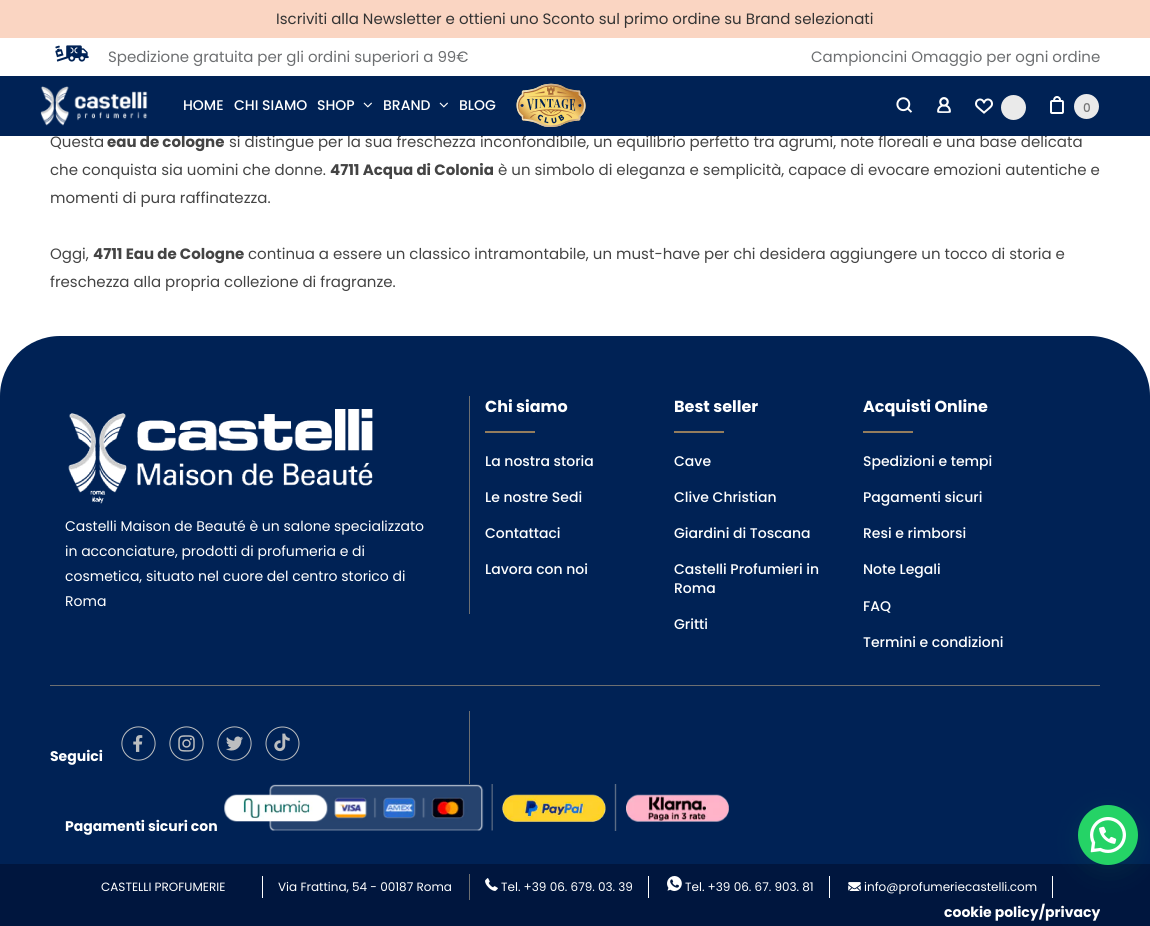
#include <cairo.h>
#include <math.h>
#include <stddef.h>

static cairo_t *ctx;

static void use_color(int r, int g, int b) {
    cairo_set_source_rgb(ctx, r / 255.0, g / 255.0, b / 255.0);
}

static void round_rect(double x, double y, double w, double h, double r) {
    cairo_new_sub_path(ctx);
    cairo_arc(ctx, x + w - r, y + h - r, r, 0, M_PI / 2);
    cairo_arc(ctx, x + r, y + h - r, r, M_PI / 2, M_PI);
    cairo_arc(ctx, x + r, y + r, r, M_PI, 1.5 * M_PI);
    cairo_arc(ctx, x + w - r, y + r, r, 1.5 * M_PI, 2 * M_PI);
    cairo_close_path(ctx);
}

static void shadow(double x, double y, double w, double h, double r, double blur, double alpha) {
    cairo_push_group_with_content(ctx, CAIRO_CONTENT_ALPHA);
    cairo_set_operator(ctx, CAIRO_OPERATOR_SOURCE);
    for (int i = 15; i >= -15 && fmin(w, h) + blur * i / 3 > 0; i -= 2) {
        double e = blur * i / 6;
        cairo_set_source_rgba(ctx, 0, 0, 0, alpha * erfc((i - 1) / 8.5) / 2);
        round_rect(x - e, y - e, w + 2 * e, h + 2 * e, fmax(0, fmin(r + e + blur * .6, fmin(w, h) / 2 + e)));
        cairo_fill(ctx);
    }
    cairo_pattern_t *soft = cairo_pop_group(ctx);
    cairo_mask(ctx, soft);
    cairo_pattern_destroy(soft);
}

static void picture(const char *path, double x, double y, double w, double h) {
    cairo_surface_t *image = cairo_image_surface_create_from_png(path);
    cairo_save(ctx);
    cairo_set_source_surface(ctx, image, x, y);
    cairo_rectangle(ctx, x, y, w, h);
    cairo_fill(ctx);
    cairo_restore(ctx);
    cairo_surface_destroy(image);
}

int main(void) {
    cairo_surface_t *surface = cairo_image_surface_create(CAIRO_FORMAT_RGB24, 1150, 926);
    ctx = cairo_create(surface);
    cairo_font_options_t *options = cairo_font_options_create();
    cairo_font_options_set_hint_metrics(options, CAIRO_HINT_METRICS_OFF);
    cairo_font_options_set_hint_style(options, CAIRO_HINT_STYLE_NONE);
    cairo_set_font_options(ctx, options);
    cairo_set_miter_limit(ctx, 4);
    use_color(255, 255, 255);
    cairo_paint(ctx);
    use_color(250, 213, 194);
    cairo_rectangle(ctx, 0, 0, 1150, 38);
    cairo_fill(ctx);
    cairo_select_font_face(ctx, "Poppins", CAIRO_FONT_SLANT_NORMAL, CAIRO_FONT_WEIGHT_NORMAL);
    cairo_set_font_size(ctx, 15);
    use_color(51, 51, 51);
    cairo_move_to(ctx, 276, 24);
    cairo_show_text(ctx, "Iscriviti alla Newsletter e ottieni uno Sconto sul primo ordine su Brand selezionati");
    picture("img1.png", 55, 45, 34, 17);
    use_color(109, 111, 113);
    cairo_move_to(ctx, 108, 62);
    cairo_show_text(ctx, "Spedizione gratuita per gli ordini superiori a 99€");
    cairo_move_to(ctx, 811, 62);
    cairo_show_text(ctx, "Campioncini Omaggio per ogni ordine");
    cairo_select_font_face(ctx, "Poppins", CAIRO_FONT_SLANT_NORMAL, CAIRO_FONT_WEIGHT_BOLD);
    use_color(68, 68, 68);
    cairo_move_to(ctx, 107, 147);
    cairo_show_text(ctx, "eau de cologne");
    cairo_select_font_face(ctx, "Poppins", CAIRO_FONT_SLANT_NORMAL, CAIRO_FONT_WEIGHT_NORMAL);
    cairo_move_to(ctx, 229, 147);
    cairo_show_text(ctx, "si distingue per la sua freschezza inconfondibile, un equilibrio perfetto tra agrumi, note floreali e una base delicata");
    use_color(0, 34, 85);
    cairo_rectangle(ctx, 0, 76, 1150, 60);
    cairo_fill(ctx);
    picture("img2.png", 40, 86, 108, 40);
    cairo_select_font_face(ctx, "Poppins Medium", CAIRO_FONT_SLANT_NORMAL, CAIRO_FONT_WEIGHT_NORMAL);
    cairo_set_font_size(ctx, 14);
    use_color(255, 255, 255);
    cairo_move_to(ctx, 183, 110);
    cairo_show_text(ctx, "HOME");
    cairo_move_to(ctx, 234, 110);
    cairo_show_text(ctx, "CHI SIAMO");
    cairo_move_to(ctx, 317, 110);
    cairo_show_text(ctx, "SHOP");
    picture("img3.png", 363, 102, 9, 6);
    cairo_move_to(ctx, 383, 110);
    cairo_show_text(ctx, "BRAND");
    picture("img3.png", 439, 102, 9, 6);
    cairo_move_to(ctx, 459, 110);
    cairo_show_text(ctx, "BLOG");
    picture("img4.png", 516, 83, 70, 44);
    picture("img5.png", 896, 97, 17, 16);
    picture("img6.png", 937, 97, 14, 16);
    picture("img7.png", 975, 98, 18, 16);
    use_color(234, 234, 234);
    cairo_arc(ctx, 1013.5, 107.5, 12.5, 0, 2 * M_PI);
    cairo_fill(ctx);
    picture("img8.png", 1050, 96, 14, 18);
    cairo_arc(ctx, 1086.5, 106.5, 12.5, 0, 2 * M_PI);
    cairo_fill(ctx);
    cairo_set_font_size(ctx, 12);
    use_color(115, 115, 115);
    cairo_move_to(ctx, 1083, 112);
    cairo_show_text(ctx, "0");
    cairo_select_font_face(ctx, "Poppins", CAIRO_FONT_SLANT_NORMAL, CAIRO_FONT_WEIGHT_NORMAL);
    cairo_set_font_size(ctx, 15);
    use_color(68, 68, 68);
    cairo_move_to(ctx, 50, 147);
    cairo_show_text(ctx, "Questa");
    cairo_move_to(ctx, 50, 175);
    cairo_show_text(ctx, "che conquista sia uomini che donne.");
    cairo_select_font_face(ctx, "Poppins", CAIRO_FONT_SLANT_NORMAL, CAIRO_FONT_WEIGHT_BOLD);
    cairo_move_to(ctx, 330, 175);
    cairo_show_text(ctx, "4711 Acqua di Colonia");
    cairo_select_font_face(ctx, "Poppins", CAIRO_FONT_SLANT_NORMAL, CAIRO_FONT_WEIGHT_NORMAL);
    cairo_move_to(ctx, 498, 175);
    cairo_show_text(ctx, "è un simbolo di eleganza e semplicità, capace di evocare emozioni autentiche e");
    cairo_move_to(ctx, 50, 203);
    cairo_show_text(ctx, "momenti di pura raffinatezza.");
    cairo_move_to(ctx, 50, 259);
    cairo_show_text(ctx, "Oggi,");
    cairo_select_font_face(ctx, "Poppins", CAIRO_FONT_SLANT_NORMAL, CAIRO_FONT_WEIGHT_BOLD);
    cairo_move_to(ctx, 93, 259);
    cairo_show_text(ctx, "4711 Eau de Cologne");
    cairo_select_font_face(ctx, "Poppins", CAIRO_FONT_SLANT_NORMAL, CAIRO_FONT_WEIGHT_NORMAL);
    cairo_move_to(ctx, 248, 259);
    cairo_show_text(ctx, "continua a essere un classico intramontabile, un must-have per chi desidera aggiungere un tocco di storia e");
    cairo_move_to(ctx, 50, 287);
    cairo_show_text(ctx, "freschezza alla propria collezione di fragranze.");
    use_color(0, 34, 85);
    cairo_new_path(ctx);
    cairo_move_to(ctx, 60, 336);
    cairo_line_to(ctx, 1090, 336);
    cairo_curve_to(ctx, 1123, 336, 1150, 363, 1150, 396);
    cairo_line_to(ctx, 1150, 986);
    cairo_line_to(ctx, 0, 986);
    cairo_line_to(ctx, 0, 396);
    cairo_curve_to(ctx, 0, 363, 27, 336, 60, 336);
    cairo_close_path(ctx);
    cairo_fill(ctx);
    use_color(109, 111, 113);
    cairo_rectangle(ctx, 50, 685, 1050, 1);
    cairo_fill(ctx);
    cairo_rectangle(ctx, 469, 396, 1, 218);
    cairo_fill(ctx);
    picture("img9.png", 68, 409, 305, 95);
    cairo_set_font_size(ctx, 14);
    use_color(255, 255, 255);
    cairo_move_to(ctx, 65, 531);
    cairo_show_text(ctx, "Castelli Maison de Beauté è un salone specializzato");
    cairo_move_to(ctx, 65, 556);
    cairo_show_text(ctx, "in acconciature, prodotti di profumeria e di");
    cairo_move_to(ctx, 65, 581);
    cairo_show_text(ctx, "cosmetica, situato nel cuore del centro storico di");
    cairo_move_to(ctx, 65, 606);
    cairo_show_text(ctx, "Roma");
    cairo_select_font_face(ctx, "Poppins", CAIRO_FONT_SLANT_NORMAL, CAIRO_FONT_WEIGHT_BOLD);
    cairo_set_font_size(ctx, 16);
    cairo_move_to(ctx, 485, 412);
    cairo_show_text(ctx, "Chi siamo");
    use_color(148, 125, 93);
    cairo_rectangle(ctx, 485, 431, 50, 2);
    cairo_fill(ctx);
    cairo_select_font_face(ctx, "Poppins Medium", CAIRO_FONT_SLANT_NORMAL, CAIRO_FONT_WEIGHT_NORMAL);
    cairo_set_font_size(ctx, 14);
    use_color(255, 255, 255);
    cairo_move_to(ctx, 485, 466);
    cairo_show_text(ctx, "La nostra storia");
    cairo_move_to(ctx, 485, 502);
    cairo_show_text(ctx, "Le nostre Sedi");
    cairo_move_to(ctx, 485, 538);
    cairo_show_text(ctx, "Contattaci");
    cairo_move_to(ctx, 485, 574);
    cairo_show_text(ctx, "Lavora con noi");
    cairo_select_font_face(ctx, "Poppins", CAIRO_FONT_SLANT_NORMAL, CAIRO_FONT_WEIGHT_BOLD);
    cairo_set_font_size(ctx, 16);
    cairo_move_to(ctx, 674, 412);
    cairo_show_text(ctx, "Best seller");
    use_color(148, 125, 93);
    cairo_rectangle(ctx, 674, 431, 50, 2);
    cairo_fill(ctx);
    cairo_select_font_face(ctx, "Poppins Medium", CAIRO_FONT_SLANT_NORMAL, CAIRO_FONT_WEIGHT_NORMAL);
    cairo_set_font_size(ctx, 14);
    use_color(255, 255, 255);
    cairo_move_to(ctx, 674, 466);
    cairo_show_text(ctx, "Cave");
    cairo_move_to(ctx, 674, 502);
    cairo_show_text(ctx, "Clive Christian");
    cairo_move_to(ctx, 674, 538);
    cairo_show_text(ctx, "Giardini di Toscana");
    cairo_move_to(ctx, 674, 574);
    cairo_show_text(ctx, "Castelli Profumieri in");
    cairo_move_to(ctx, 674, 593);
    cairo_show_text(ctx, "Roma");
    cairo_move_to(ctx, 674, 629);
    cairo_show_text(ctx, "Gritti");
    cairo_select_font_face(ctx, "Poppins", CAIRO_FONT_SLANT_NORMAL, CAIRO_FONT_WEIGHT_BOLD);
    cairo_set_font_size(ctx, 16);
    cairo_move_to(ctx, 863, 412);
    cairo_show_text(ctx, "Acquisti Online");
    use_color(148, 125, 93);
    cairo_rectangle(ctx, 863, 431, 50, 2);
    cairo_fill(ctx);
    cairo_select_font_face(ctx, "Poppins Medium", CAIRO_FONT_SLANT_NORMAL, CAIRO_FONT_WEIGHT_NORMAL);
    cairo_set_font_size(ctx, 14);
    use_color(255, 255, 255);
    cairo_move_to(ctx, 863, 466);
    cairo_show_text(ctx, "Spedizioni e tempi");
    cairo_move_to(ctx, 863, 502);
    cairo_show_text(ctx, "Pagamenti sicuri");
    cairo_move_to(ctx, 863, 538);
    cairo_show_text(ctx, "Resi e rimborsi");
    cairo_move_to(ctx, 863, 574);
    cairo_show_text(ctx, "Note Legali");
    cairo_move_to(ctx, 863, 611);
    cairo_show_text(ctx, "FAQ");
    cairo_move_to(ctx, 863, 647);
    cairo_show_text(ctx, "Termini e condizioni");
    use_color(109, 111, 113);
    cairo_rectangle(ctx, 469, 711, 1, 73);
    cairo_fill(ctx);
    cairo_select_font_face(ctx, "Poppins", CAIRO_FONT_SLANT_NORMAL, CAIRO_FONT_WEIGHT_BOLD);
    use_color(255, 255, 255);
    cairo_move_to(ctx, 50, 761);
    cairo_show_text(ctx, "Seguici");
    picture("img10.png", 121, 726, 35, 35);
    picture("img11.png", 169, 726, 35, 35);
    picture("img12.png", 217, 726, 35, 35);
    picture("img13.png", 265, 726, 35, 35);
    cairo_move_to(ctx, 65, 831);
    cairo_show_text(ctx, "Pagamenti sicuri con");
    picture("img14.png", 224, 784, 505, 47);
    use_color(0, 22, 62);
    cairo_rectangle(ctx, 0, 864, 1150, 62);
    cairo_fill(ctx);
    use_color(109, 111, 113);
    cairo_rectangle(ctx, 469, 874, 1, 26);
    cairo_fill(ctx);
    use_color(255, 255, 255);
    cairo_rectangle(ctx, 262, 876, 1, 22);
    cairo_fill(ctx);
    cairo_select_font_face(ctx, "Poppins", CAIRO_FONT_SLANT_NORMAL, CAIRO_FONT_WEIGHT_NORMAL);
    cairo_set_font_size(ctx, 12);
    cairo_move_to(ctx, 101, 891);
    cairo_show_text(ctx, "CASTELLI PROFUMERIE");
    cairo_move_to(ctx, 278, 891);
    cairo_show_text(ctx, "Via Frattina, 54 - 00187 Roma");
    cairo_rectangle(ctx, 648, 876, 1, 22);
    cairo_fill(ctx);
    picture("img15.png", 485, 878, 13, 13);
    cairo_move_to(ctx, 501, 891);
    cairo_show_text(ctx, "Tel. +39 06. 679. 03. 39");
    cairo_rectangle(ctx, 829, 876, 1, 22);
    cairo_fill(ctx);
    picture("img16.png", 667, 876, 15, 15);
    cairo_move_to(ctx, 685, 891);
    cairo_show_text(ctx, "Tel. +39 06. 67. 903. 81");
    cairo_rectangle(ctx, 1052, 876, 1, 22);
    cairo_fill(ctx);
    picture("img17.png", 848, 882, 13, 9);
    cairo_move_to(ctx, 864, 891);
    cairo_show_text(ctx, "info@profumeriecastelli.com");
    cairo_select_font_face(ctx, "Poppins", CAIRO_FONT_SLANT_NORMAL, CAIRO_FONT_WEIGHT_BOLD);
    cairo_set_font_size(ctx, 14);
    cairo_move_to(ctx, 944, 917);
    cairo_show_text(ctx, "cookie policy/privacy");
    use_color(7, 94, 84);
    shadow(1079, 811, 60, 60, 30, 12, 0.24);
    use_color(37, 211, 102);
    cairo_arc(ctx, 1108, 835, 30, 0, 2 * M_PI);
    cairo_fill(ctx);
    picture("img18.png", 1090, 817, 36, 36);
    cairo_surface_write_to_png(surface, "result.png");
    cairo_font_options_destroy(options);
    cairo_destroy(ctx);
    cairo_surface_destroy(surface);
    return 0;
}
